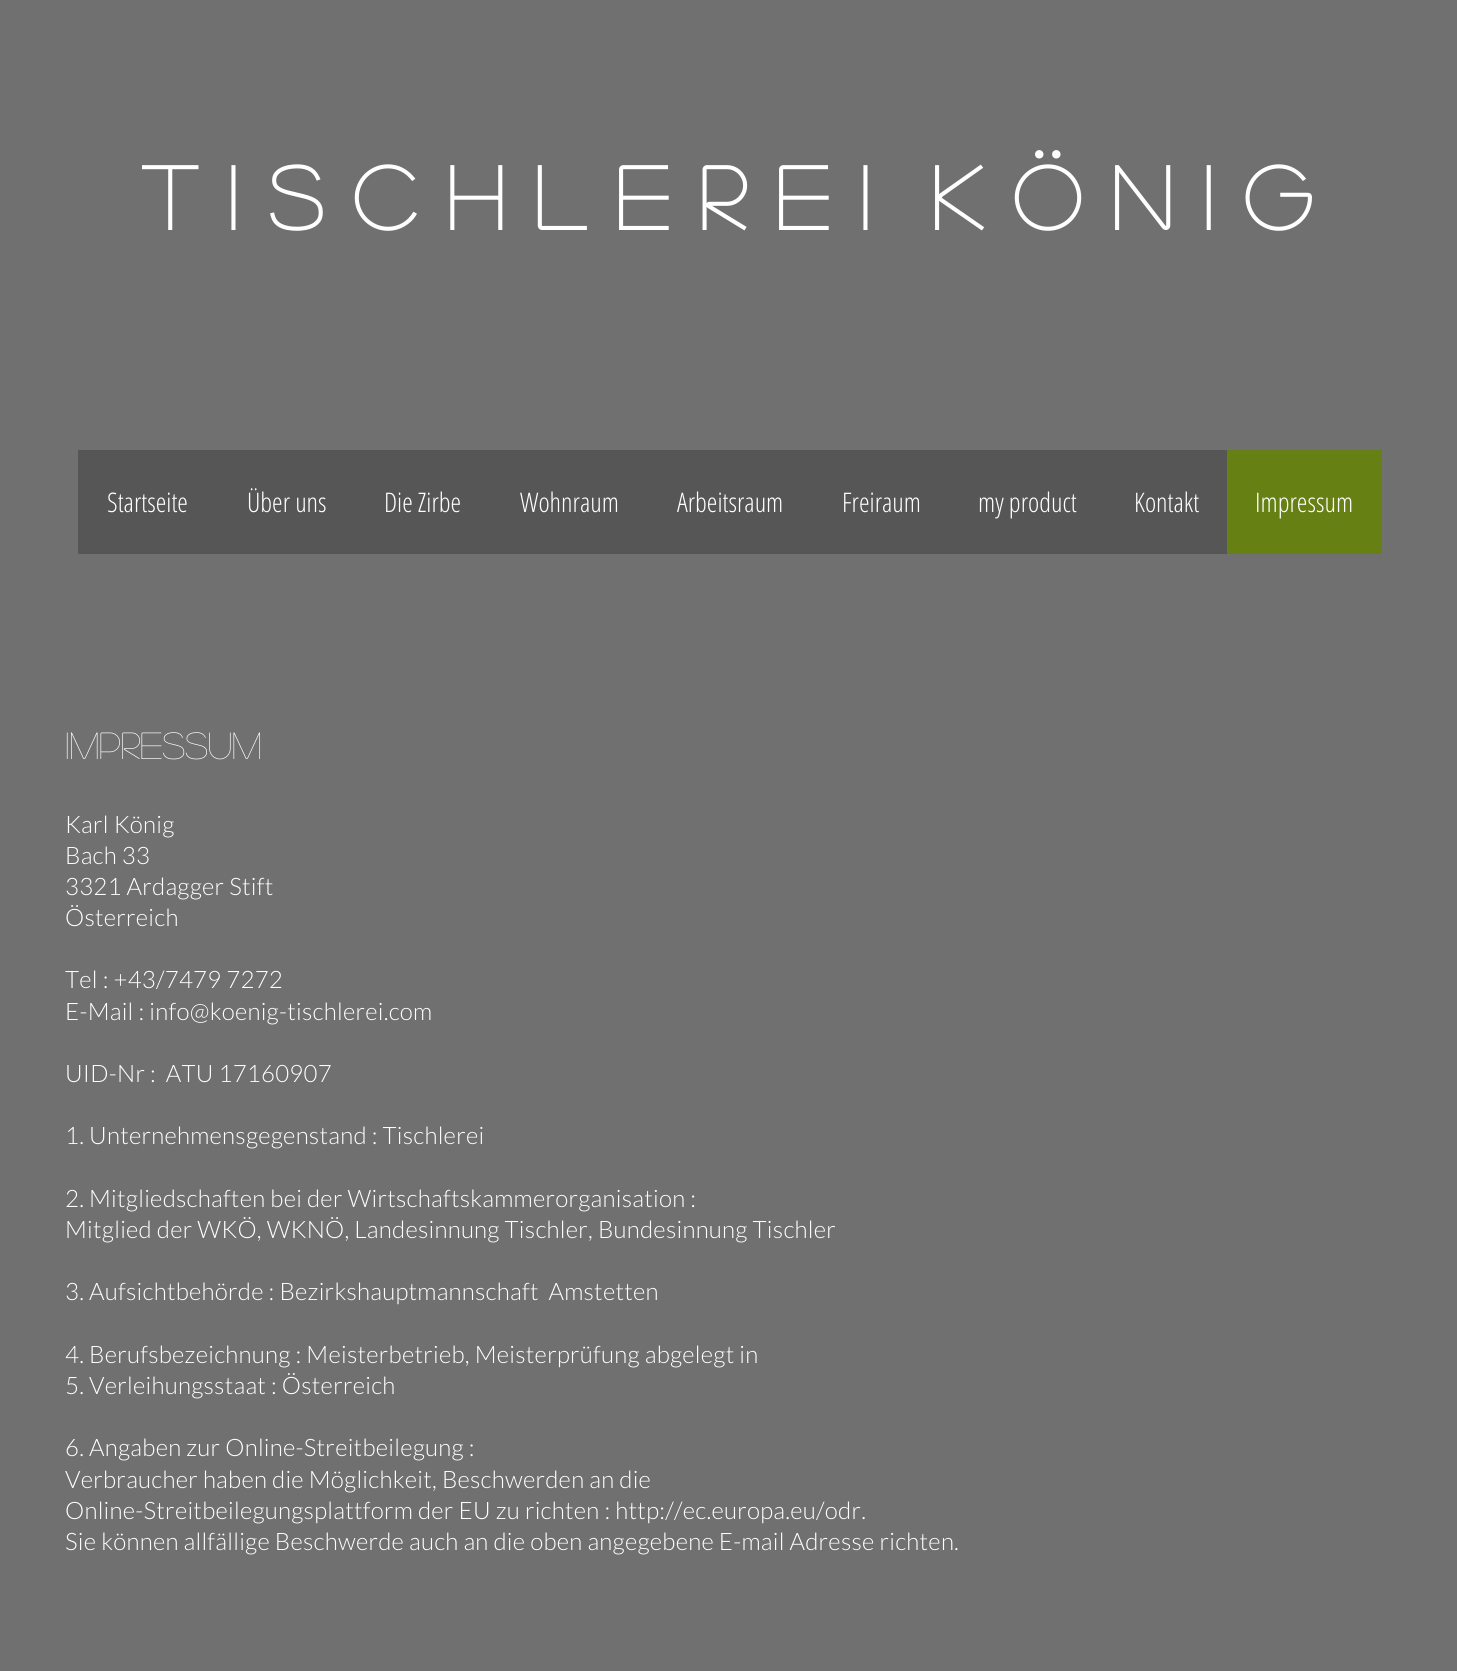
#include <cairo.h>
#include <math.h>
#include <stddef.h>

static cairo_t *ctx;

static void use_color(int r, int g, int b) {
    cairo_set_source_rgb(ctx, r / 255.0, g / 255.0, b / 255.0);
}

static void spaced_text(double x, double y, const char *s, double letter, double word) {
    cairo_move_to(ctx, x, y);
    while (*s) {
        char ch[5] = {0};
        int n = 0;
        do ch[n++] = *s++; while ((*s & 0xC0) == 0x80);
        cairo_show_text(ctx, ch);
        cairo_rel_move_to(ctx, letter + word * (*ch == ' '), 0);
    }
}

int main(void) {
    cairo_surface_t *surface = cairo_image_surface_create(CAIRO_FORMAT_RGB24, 1457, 1671);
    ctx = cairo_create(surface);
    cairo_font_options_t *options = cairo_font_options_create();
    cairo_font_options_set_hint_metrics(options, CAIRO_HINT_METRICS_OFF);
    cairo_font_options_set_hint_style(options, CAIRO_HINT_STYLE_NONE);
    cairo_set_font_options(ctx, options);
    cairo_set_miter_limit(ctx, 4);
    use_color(113, 112, 112);
    cairo_paint(ctx);
    cairo_select_font_face(ctx, "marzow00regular", CAIRO_FONT_SLANT_NORMAL, CAIRO_FONT_WEIGHT_BOLD);
    cairo_set_font_size(ctx, 88.5);
    use_color(255, 255, 255);
    cairo_move_to(ctx, 142, 230);
    cairo_show_text(ctx, "T I S C H L E R E I  K Ö N I G");
    use_color(86, 86, 86);
    cairo_rectangle(ctx, 78, 450, 1149, 104);
    cairo_fill(ctx);
    cairo_select_font_face(ctx, "Open Sans Condensed Light", CAIRO_FONT_SLANT_NORMAL, CAIRO_FONT_WEIGHT_NORMAL);
    cairo_set_font_size(ctx, 27);
    use_color(255, 255, 255);
    cairo_move_to(ctx, 107, 512);
    cairo_show_text(ctx, "Startseite");
    cairo_move_to(ctx, 247, 512);
    cairo_show_text(ctx, "Über uns");
    cairo_move_to(ctx, 384, 512);
    cairo_show_text(ctx, "Die Zirbe");
    cairo_move_to(ctx, 520, 512);
    cairo_show_text(ctx, "Wohnraum");
    cairo_move_to(ctx, 677, 512);
    cairo_show_text(ctx, "Arbeitsraum");
    cairo_move_to(ctx, 842, 512);
    cairo_show_text(ctx, "Freiraum");
    cairo_move_to(ctx, 978, 512);
    cairo_show_text(ctx, "my product");
    cairo_move_to(ctx, 1134, 512);
    cairo_show_text(ctx, "Kontakt");
    use_color(102, 128, 20);
    cairo_rectangle(ctx, 1227, 450, 155, 104);
    cairo_fill(ctx);
    use_color(255, 255, 255);
    cairo_move_to(ctx, 1255, 512);
    cairo_show_text(ctx, "Impressum");
    cairo_select_font_face(ctx, "marzow00regular", CAIRO_FONT_SLANT_NORMAL, CAIRO_FONT_WEIGHT_NORMAL);
    cairo_set_font_size(ctx, 37.5);
    cairo_move_to(ctx, 65, 759);
    cairo_show_text(ctx, "Impressum");
    cairo_select_font_face(ctx, "Lato Light", CAIRO_FONT_SLANT_NORMAL, CAIRO_FONT_WEIGHT_NORMAL);
    cairo_set_font_size(ctx, 24);
    spaced_text(65, 833, "Karl König", 0.25, 0);
    spaced_text(65, 864, "Bach 33", 0.25, 0);
    spaced_text(65, 895, "3321 Ardagger Stift", 0.25, 0);
    spaced_text(65, 926, "Österreich", 0.25, 0);
    spaced_text(65, 988, "Tel : +43/7479 7272", 0.25, 0);
    spaced_text(65, 1020, "E-Mail : info@koenig-tischlerei.com", 0.25, 0);
    spaced_text(65, 1082, "UID-Nr :  ATU 17160907", 0.25, 0);
    spaced_text(65, 1144, "1. Unternehmensgegenstand : Tischlerei", 0.25, 0);
    spaced_text(65, 1207, "2. Mitgliedschaften bei der Wirtschaftskammerorganisation :", 0.25, 0);
    spaced_text(65, 1238, "Mitglied der WKÖ, WKNÖ, Landesinnung Tischler, Bundesinnung Tischler", 0.25, 0);
    spaced_text(65, 1300, "3. Aufsichtbehörde : Bezirkshauptmannschaft  Amstetten", 0.25, 0);
    spaced_text(65, 1363, "4. Berufsbezeichnung : Meisterbetrieb, Meisterprüfung abgelegt in", 0.25, 0);
    spaced_text(65, 1394, "5. Verleihungsstaat : Österreich", 0.25, 0);
    spaced_text(65, 1456, "6. Angaben zur Online-Streitbeilegung :", 0.25, 0);
    spaced_text(65, 1488, "Verbraucher haben die Möglichkeit, Beschwerden an die", 0.25, 0);
    spaced_text(65, 1519, "Online-Streitbeilegungsplattform der EU zu richten : http://ec.europa.eu/odr.", 0.25, 0);
    spaced_text(65, 1550, "Sie können allfällige Beschwerde auch an die oben angegebene E-mail Adresse richten.", 0.25, 0);
    cairo_surface_write_to_png(surface, "result.png");
    cairo_font_options_destroy(options);
    cairo_destroy(ctx);
    cairo_surface_destroy(surface);
    return 0;
}
